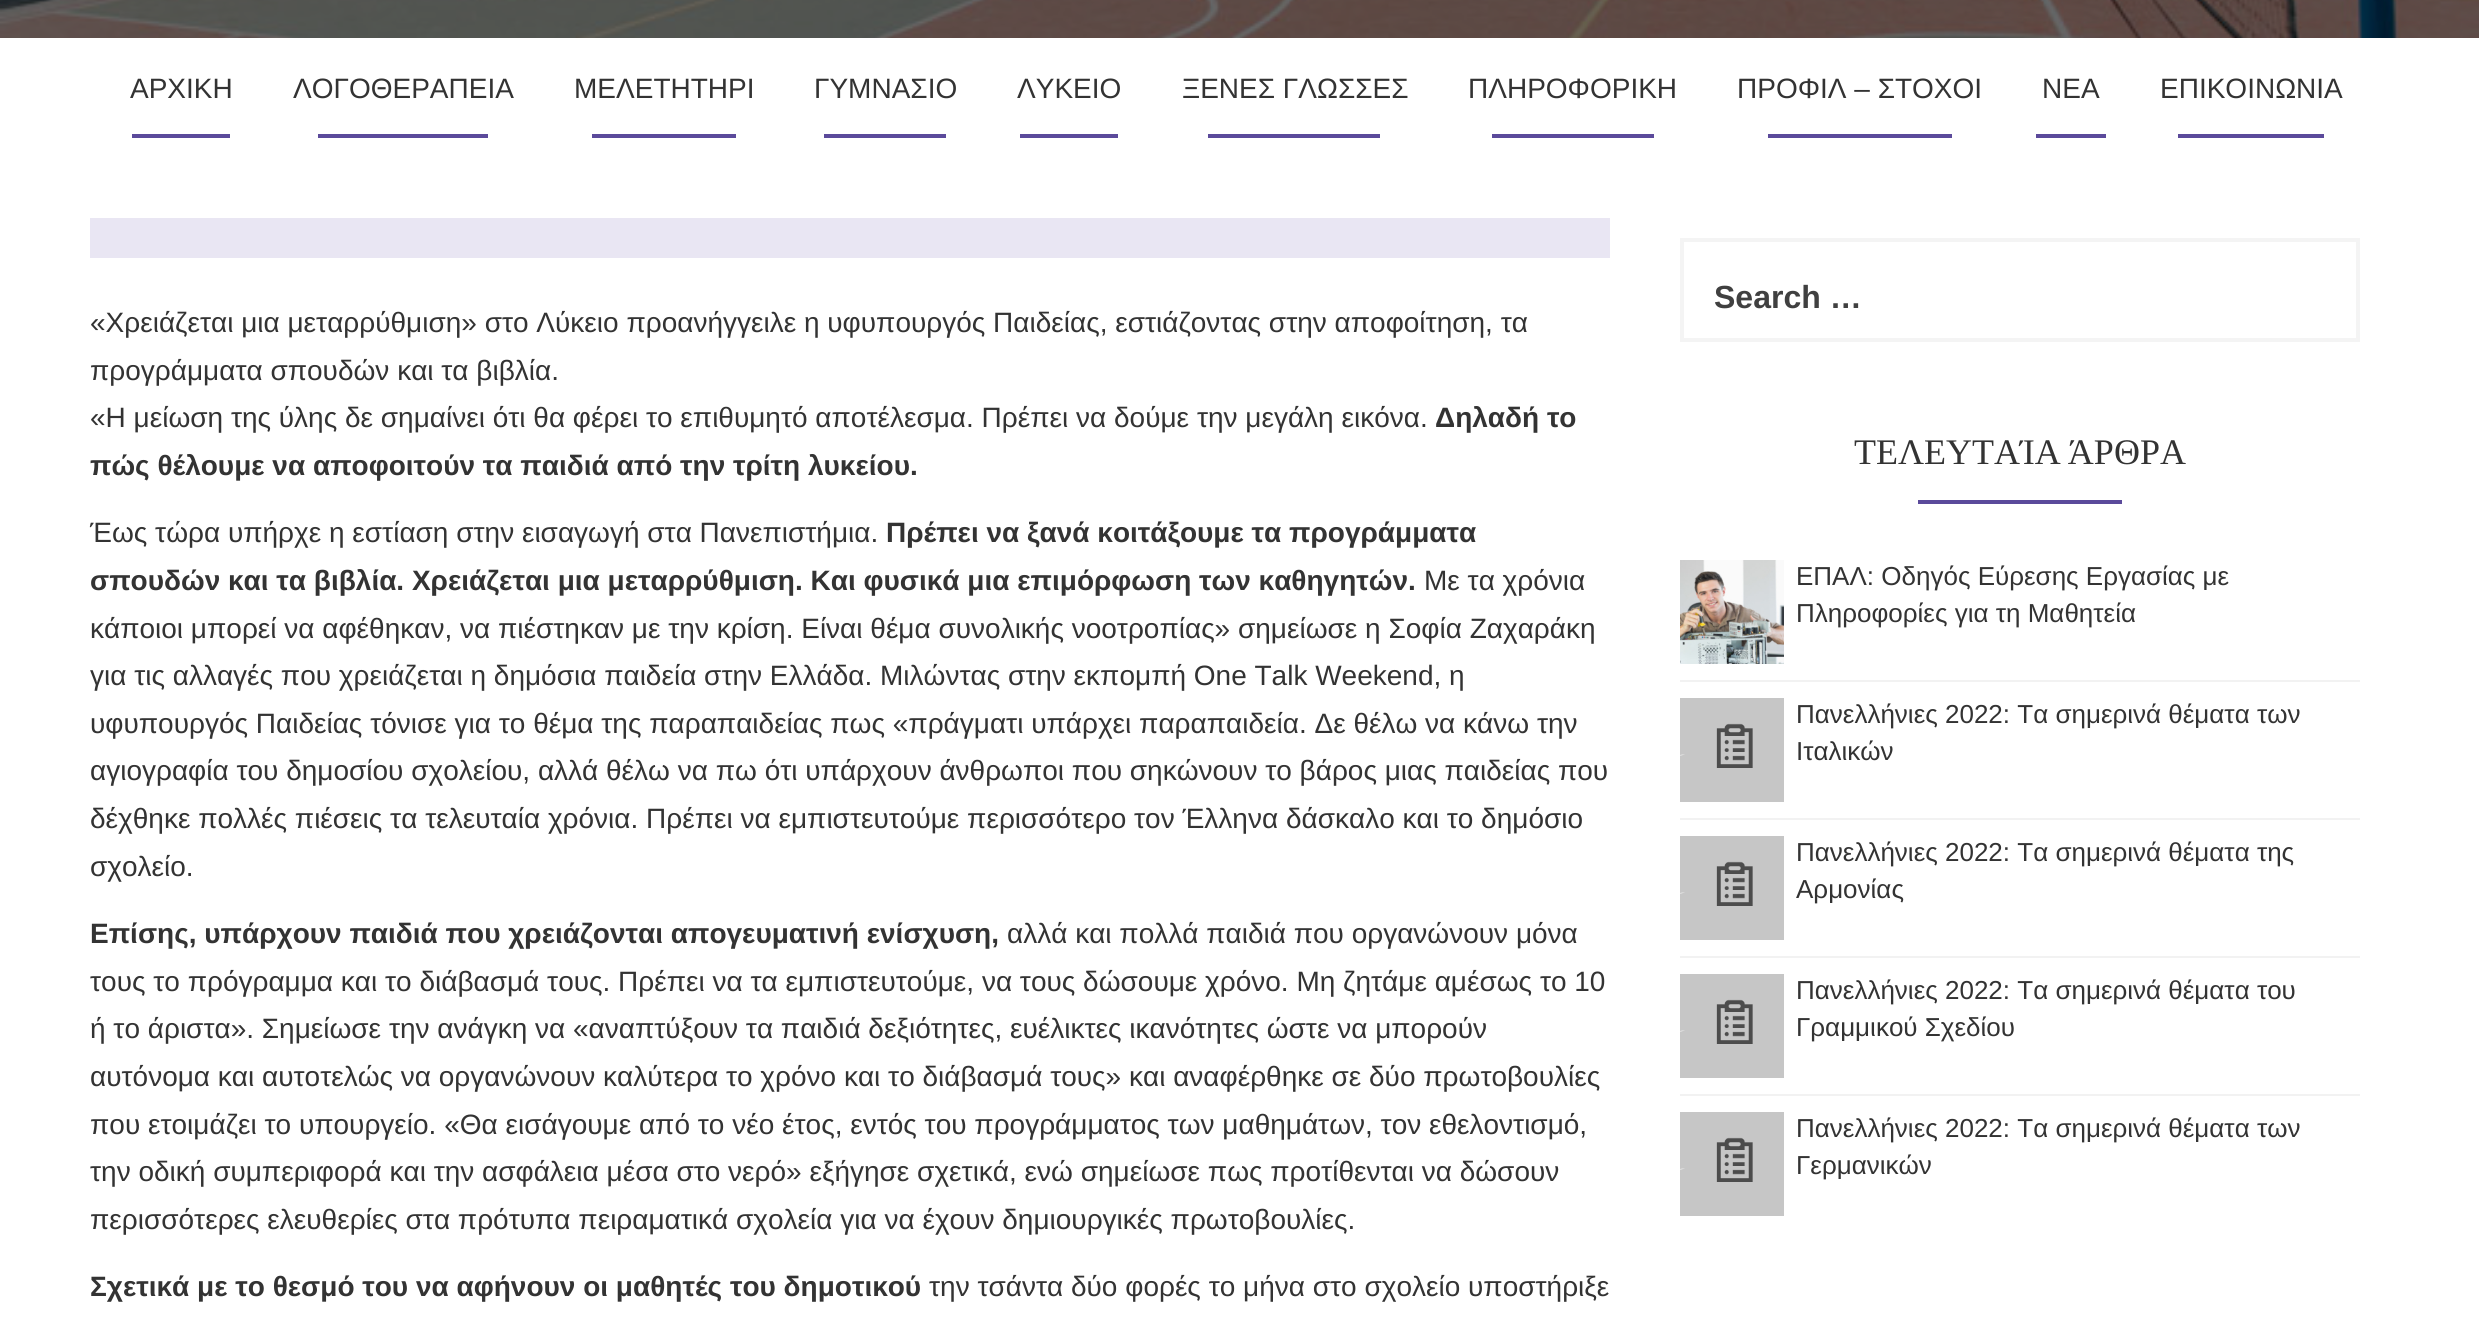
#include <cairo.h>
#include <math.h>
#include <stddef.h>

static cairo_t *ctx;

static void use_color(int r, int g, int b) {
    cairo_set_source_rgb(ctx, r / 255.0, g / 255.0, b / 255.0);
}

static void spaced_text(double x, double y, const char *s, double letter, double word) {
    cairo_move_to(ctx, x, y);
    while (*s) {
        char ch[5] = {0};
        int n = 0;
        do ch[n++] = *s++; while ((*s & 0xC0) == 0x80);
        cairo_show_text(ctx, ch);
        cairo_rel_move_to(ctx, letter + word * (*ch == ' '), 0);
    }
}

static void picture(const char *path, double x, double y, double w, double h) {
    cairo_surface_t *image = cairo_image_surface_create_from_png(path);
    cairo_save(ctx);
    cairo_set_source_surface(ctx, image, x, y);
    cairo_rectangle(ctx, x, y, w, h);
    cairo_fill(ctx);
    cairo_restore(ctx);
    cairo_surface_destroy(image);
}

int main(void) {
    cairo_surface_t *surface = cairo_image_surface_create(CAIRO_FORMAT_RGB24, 2479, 1323);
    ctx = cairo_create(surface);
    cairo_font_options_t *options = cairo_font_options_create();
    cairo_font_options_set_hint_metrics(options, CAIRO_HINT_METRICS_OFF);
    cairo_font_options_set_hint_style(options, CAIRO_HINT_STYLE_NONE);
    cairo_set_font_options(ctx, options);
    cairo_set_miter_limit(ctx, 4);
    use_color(255, 255, 255);
    cairo_paint(ctx);
    picture("img1.png", 0, 0, 2479, 38);
    cairo_select_font_face(ctx, "Liberation Sans", CAIRO_FONT_SLANT_NORMAL, CAIRO_FONT_WEIGHT_NORMAL);
    cairo_set_font_size(ctx, 28);
    use_color(51, 51, 51);
    cairo_move_to(ctx, 130, 98);
    cairo_show_text(ctx, "ΑΡΧΙΚΗ");
    use_color(91, 74, 155);
    cairo_rectangle(ctx, 132, 134, 98, 4);
    cairo_fill(ctx);
    use_color(51, 51, 51);
    cairo_move_to(ctx, 293, 98);
    cairo_show_text(ctx, "ΛΟΓΟΘΕΡΑΠΕΙΑ");
    use_color(91, 74, 155);
    cairo_rectangle(ctx, 318, 134, 170, 4);
    cairo_fill(ctx);
    use_color(51, 51, 51);
    cairo_move_to(ctx, 574, 98);
    cairo_show_text(ctx, "ΜΕΛΕΤΗΤΗΡΙ");
    use_color(91, 74, 155);
    cairo_rectangle(ctx, 592, 134, 144, 4);
    cairo_fill(ctx);
    use_color(51, 51, 51);
    cairo_move_to(ctx, 814, 98);
    cairo_show_text(ctx, "ΓΥΜΝΑΣΙΟ");
    use_color(91, 74, 155);
    cairo_rectangle(ctx, 824, 134, 122, 4);
    cairo_fill(ctx);
    use_color(51, 51, 51);
    cairo_move_to(ctx, 1017, 98);
    cairo_show_text(ctx, "ΛΥΚΕΙΟ");
    use_color(91, 74, 155);
    cairo_rectangle(ctx, 1020, 134, 98, 4);
    cairo_fill(ctx);
    use_color(51, 51, 51);
    cairo_move_to(ctx, 1182, 98);
    cairo_show_text(ctx, "ΞΕΝΕΣ ΓΛΩΣΣΕΣ");
    use_color(91, 74, 155);
    cairo_rectangle(ctx, 1208, 134, 172, 4);
    cairo_fill(ctx);
    use_color(51, 51, 51);
    cairo_move_to(ctx, 1468, 98);
    cairo_show_text(ctx, "ΠΛΗΡΟΦΟΡΙΚΗ");
    use_color(91, 74, 155);
    cairo_rectangle(ctx, 1492, 134, 162, 4);
    cairo_fill(ctx);
    use_color(51, 51, 51);
    cairo_move_to(ctx, 1737, 98);
    cairo_show_text(ctx, "ΠΡΟΦΙΛ – ΣΤΟΧΟΙ");
    use_color(91, 74, 155);
    cairo_rectangle(ctx, 1768, 134, 184, 4);
    cairo_fill(ctx);
    use_color(51, 51, 51);
    cairo_move_to(ctx, 2042, 98);
    cairo_show_text(ctx, "ΝΕΑ");
    use_color(91, 74, 155);
    cairo_rectangle(ctx, 2036, 134, 70, 4);
    cairo_fill(ctx);
    use_color(51, 51, 51);
    cairo_move_to(ctx, 2160, 98);
    cairo_show_text(ctx, "ΕΠΙΚΟΙΝΩΝΙΑ");
    use_color(91, 74, 155);
    cairo_rectangle(ctx, 2178, 134, 146, 4);
    cairo_fill(ctx);
    use_color(233, 230, 243);
    cairo_rectangle(ctx, 90, 218, 1520, 40);
    cairo_fill(ctx);
    use_color(51, 51, 51);
    cairo_move_to(ctx, 90, 332);
    cairo_show_text(ctx, "«Χρειάζεται μια μεταρρύθμιση» στο Λύκειο προανήγγειλε η υφυπουργός Παιδείας, εστιάζοντας στην αποφοίτηση, τα");
    cairo_move_to(ctx, 90, 380);
    cairo_show_text(ctx, "προγράμματα σπουδών και τα βιβλία.");
    cairo_move_to(ctx, 90, 427);
    cairo_show_text(ctx, "«Η μείωση της ύλης δε σημαίνει ότι θα φέρει το επιθυμητό αποτέλεσμα. Πρέπει να δούμε την μεγάλη εικόνα.");
    cairo_select_font_face(ctx, "Liberation Sans", CAIRO_FONT_SLANT_NORMAL, CAIRO_FONT_WEIGHT_BOLD);
    cairo_move_to(ctx, 1435, 427);
    cairo_show_text(ctx, "Δηλαδή το");
    cairo_move_to(ctx, 90, 475);
    cairo_show_text(ctx, "πώς θέλουμε να αποφοιτούν τα παιδιά από την τρίτη λυκείου.");
    cairo_select_font_face(ctx, "Liberation Sans", CAIRO_FONT_SLANT_NORMAL, CAIRO_FONT_WEIGHT_NORMAL);
    cairo_move_to(ctx, 90, 542);
    cairo_show_text(ctx, "Έως τώρα υπήρχε η εστίαση στην εισαγωγή στα Πανεπιστήμια.");
    cairo_select_font_face(ctx, "Liberation Sans", CAIRO_FONT_SLANT_NORMAL, CAIRO_FONT_WEIGHT_BOLD);
    cairo_move_to(ctx, 886, 542);
    cairo_show_text(ctx, "Πρέπει να ξανά κοιτάξουμε τα προγράμματα");
    cairo_move_to(ctx, 90, 590);
    cairo_show_text(ctx, "σπουδών και τα βιβλία. Χρειάζεται μια μεταρρύθμιση. Και φυσικά μια επιμόρφωση των καθηγητών.");
    cairo_select_font_face(ctx, "Liberation Sans", CAIRO_FONT_SLANT_NORMAL, CAIRO_FONT_WEIGHT_NORMAL);
    cairo_move_to(ctx, 1424, 590);
    cairo_show_text(ctx, "Με τα χρόνια");
    cairo_move_to(ctx, 90, 638);
    cairo_show_text(ctx, "κάποιοι μπορεί να αφέθηκαν, να πιέστηκαν με την κρίση. Είναι θέμα συνολικής νοοτροπίας» σημείωσε η Σοφία Ζαχαράκη");
    cairo_move_to(ctx, 90, 685);
    cairo_show_text(ctx, "για τις αλλαγές που χρειάζεται η δημόσια παιδεία στην Ελλάδα. Μιλώντας στην εκπομπή One Talk Weekend, η");
    cairo_move_to(ctx, 90, 733);
    cairo_show_text(ctx, "υφυπουργός Παιδείας τόνισε για το θέμα της παραπαιδείας πως «πράγματι υπάρχει παραπαιδεία. Δε θέλω να κάνω την");
    cairo_move_to(ctx, 90, 780);
    cairo_show_text(ctx, "αγιογραφία του δημοσίου σχολείου, αλλά θέλω να πω ότι υπάρχουν άνθρωποι που σηκώνουν το βάρος μιας παιδείας που");
    cairo_move_to(ctx, 90, 828);
    cairo_show_text(ctx, "δέχθηκε πολλές πιέσεις τα τελευταία χρόνια. Πρέπει να εμπιστευτούμε περισσότερο τον Έλληνα δάσκαλο και το δημόσιο");
    cairo_move_to(ctx, 90, 876);
    cairo_show_text(ctx, "σχολείο.");
    cairo_select_font_face(ctx, "Liberation Sans", CAIRO_FONT_SLANT_NORMAL, CAIRO_FONT_WEIGHT_BOLD);
    cairo_move_to(ctx, 90, 943);
    cairo_show_text(ctx, "Επίσης, υπάρχουν παιδιά που χρειάζονται απογευματινή ενίσχυση,");
    cairo_select_font_face(ctx, "Liberation Sans", CAIRO_FONT_SLANT_NORMAL, CAIRO_FONT_WEIGHT_NORMAL);
    cairo_move_to(ctx, 1007, 943);
    cairo_show_text(ctx, "αλλά και πολλά παιδιά που οργανώνουν μόνα");
    cairo_move_to(ctx, 90, 991);
    cairo_show_text(ctx, "τους το πρόγραμμα και το διάβασμά τους. Πρέπει να τα εμπιστευτούμε, να τους δώσουμε χρόνο. Μη ζητάμε αμέσως το 10");
    cairo_move_to(ctx, 90, 1038);
    cairo_show_text(ctx, "ή το άριστα». Σημείωσε την ανάγκη να «αναπτύξουν τα παιδιά δεξιότητες, ευέλικτες ικανότητες ώστε να μπορούν");
    cairo_move_to(ctx, 90, 1086);
    cairo_show_text(ctx, "αυτόνομα και αυτοτελώς να οργανώνουν καλύτερα το χρόνο και το διάβασμά τους» και αναφέρθηκε σε δύο πρωτοβουλίες");
    cairo_move_to(ctx, 90, 1134);
    cairo_show_text(ctx, "που ετοιμάζει το υπουργείο. «Θα εισάγουμε από το νέο έτος, εντός του προγράμματος των μαθημάτων, τον εθελοντισμό,");
    cairo_move_to(ctx, 90, 1181);
    cairo_show_text(ctx, "την οδική συμπεριφορά και την ασφάλεια μέσα στο νερό» εξήγησε σχετικά, ενώ σημείωσε πως προτίθενται να δώσουν");
    cairo_move_to(ctx, 90, 1229);
    cairo_show_text(ctx, "περισσότερες ελευθερίες στα πρότυπα πειραματικά σχολεία για να έχουν δημιουργικές πρωτοβουλίες.");
    cairo_select_font_face(ctx, "Liberation Sans", CAIRO_FONT_SLANT_NORMAL, CAIRO_FONT_WEIGHT_BOLD);
    cairo_move_to(ctx, 90, 1296);
    cairo_show_text(ctx, "Σχετικά με το θεσμό του να αφήνουν οι μαθητές του δημοτικού");
    cairo_select_font_face(ctx, "Liberation Sans", CAIRO_FONT_SLANT_NORMAL, CAIRO_FONT_WEIGHT_NORMAL);
    cairo_move_to(ctx, 929, 1296);
    cairo_show_text(ctx, "την τσάντα δύο φορές το μήνα στο σχολείο υποστήριξε");
    cairo_rectangle(ctx, 1682, 240, 676, 100);
    use_color(244, 244, 244);
    cairo_set_line_width(ctx, 4);
    cairo_stroke(ctx);
    cairo_select_font_face(ctx, "Liberation Sans", CAIRO_FONT_SLANT_NORMAL, CAIRO_FONT_WEIGHT_BOLD);
    cairo_set_font_size(ctx, 32);
    use_color(64, 64, 64);
    cairo_move_to(ctx, 1714, 308);
    cairo_show_text(ctx, "Search …");
    cairo_select_font_face(ctx, "Liberation Serif", CAIRO_FONT_SLANT_NORMAL, CAIRO_FONT_WEIGHT_NORMAL);
    cairo_set_font_size(ctx, 36);
    use_color(51, 51, 51);
    spaced_text(1854, 464, "ΤΕΛΕΥΤΑΊΑ ΆΡΘΡΑ", 0, -2);
    use_color(91, 74, 155);
    cairo_rectangle(ctx, 1918, 500, 204, 4);
    cairo_fill(ctx);
    use_color(242, 242, 242);
    cairo_rectangle(ctx, 1680, 680, 680, 2);
    cairo_fill(ctx);
    picture("img2.png", 1680, 560, 104, 104);
    cairo_select_font_face(ctx, "Liberation Sans", CAIRO_FONT_SLANT_NORMAL, CAIRO_FONT_WEIGHT_NORMAL);
    cairo_set_font_size(ctx, 26);
    use_color(51, 51, 51);
    cairo_move_to(ctx, 1796, 585);
    cairo_show_text(ctx, "ΕΠΑΛ: Οδηγός Εύρεσης Εργασίας με");
    cairo_move_to(ctx, 1796, 622);
    cairo_show_text(ctx, "Πληροφορίες για τη Μαθητεία");
    use_color(242, 242, 242);
    cairo_rectangle(ctx, 1680, 818, 680, 2);
    cairo_fill(ctx);
    picture("img3.png", 1680, 698, 104, 104);
    use_color(51, 51, 51);
    cairo_move_to(ctx, 1796, 723);
    cairo_show_text(ctx, "Πανελλήνιες 2022: Τα σημερινά θέματα των");
    cairo_move_to(ctx, 1796, 760);
    cairo_show_text(ctx, "Ιταλικών");
    use_color(242, 242, 242);
    cairo_rectangle(ctx, 1680, 956, 680, 2);
    cairo_fill(ctx);
    picture("img3.png", 1680, 836, 104, 104);
    use_color(51, 51, 51);
    cairo_move_to(ctx, 1796, 861);
    cairo_show_text(ctx, "Πανελλήνιες 2022: Τα σημερινά θέματα της");
    cairo_move_to(ctx, 1796, 898);
    cairo_show_text(ctx, "Αρμονίας");
    use_color(242, 242, 242);
    cairo_rectangle(ctx, 1680, 1094, 680, 2);
    cairo_fill(ctx);
    picture("img3.png", 1680, 974, 104, 104);
    use_color(51, 51, 51);
    cairo_move_to(ctx, 1796, 999);
    cairo_show_text(ctx, "Πανελλήνιες 2022: Τα σημερινά θέματα του");
    cairo_move_to(ctx, 1796, 1036);
    cairo_show_text(ctx, "Γραμμικού Σχεδίου");
    picture("img3.png", 1680, 1112, 104, 104);
    cairo_move_to(ctx, 1796, 1137);
    cairo_show_text(ctx, "Πανελλήνιες 2022: Τα σημερινά θέματα των");
    cairo_move_to(ctx, 1796, 1174);
    cairo_show_text(ctx, "Γερμανικών");
    cairo_surface_write_to_png(surface, "result.png");
    cairo_font_options_destroy(options);
    cairo_destroy(ctx);
    cairo_surface_destroy(surface);
    return 0;
}
